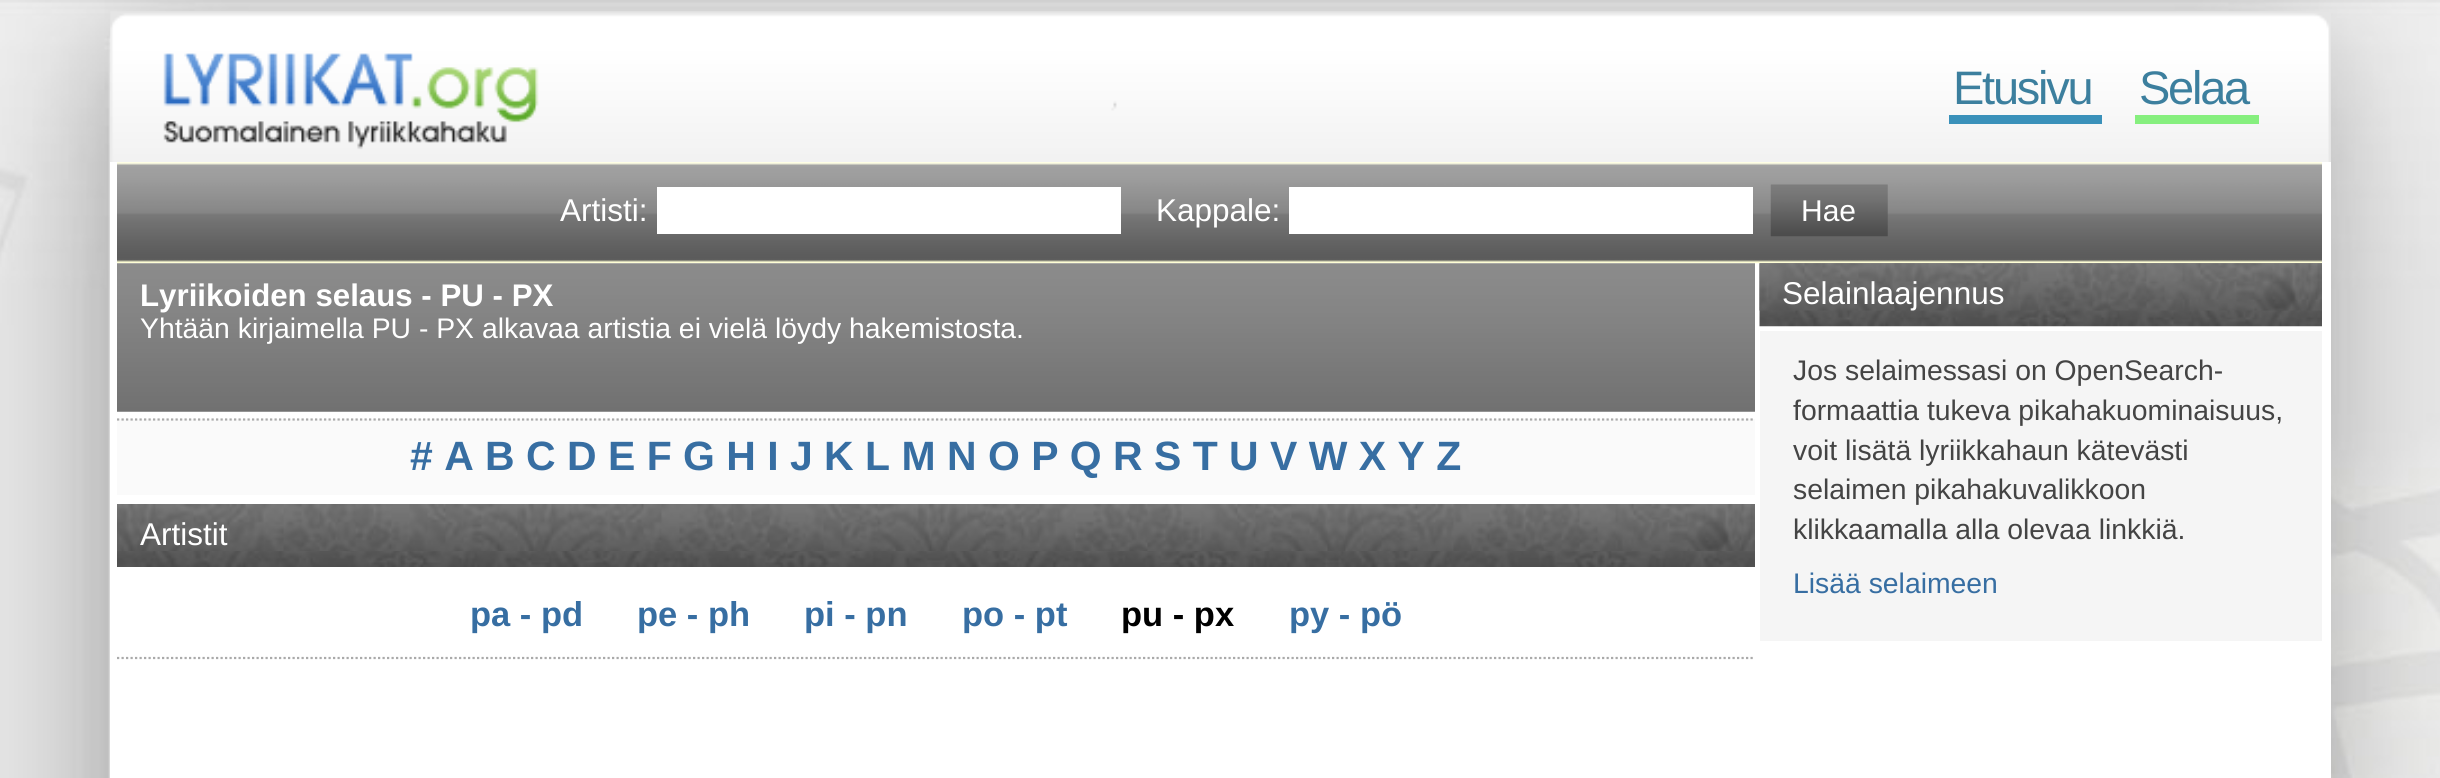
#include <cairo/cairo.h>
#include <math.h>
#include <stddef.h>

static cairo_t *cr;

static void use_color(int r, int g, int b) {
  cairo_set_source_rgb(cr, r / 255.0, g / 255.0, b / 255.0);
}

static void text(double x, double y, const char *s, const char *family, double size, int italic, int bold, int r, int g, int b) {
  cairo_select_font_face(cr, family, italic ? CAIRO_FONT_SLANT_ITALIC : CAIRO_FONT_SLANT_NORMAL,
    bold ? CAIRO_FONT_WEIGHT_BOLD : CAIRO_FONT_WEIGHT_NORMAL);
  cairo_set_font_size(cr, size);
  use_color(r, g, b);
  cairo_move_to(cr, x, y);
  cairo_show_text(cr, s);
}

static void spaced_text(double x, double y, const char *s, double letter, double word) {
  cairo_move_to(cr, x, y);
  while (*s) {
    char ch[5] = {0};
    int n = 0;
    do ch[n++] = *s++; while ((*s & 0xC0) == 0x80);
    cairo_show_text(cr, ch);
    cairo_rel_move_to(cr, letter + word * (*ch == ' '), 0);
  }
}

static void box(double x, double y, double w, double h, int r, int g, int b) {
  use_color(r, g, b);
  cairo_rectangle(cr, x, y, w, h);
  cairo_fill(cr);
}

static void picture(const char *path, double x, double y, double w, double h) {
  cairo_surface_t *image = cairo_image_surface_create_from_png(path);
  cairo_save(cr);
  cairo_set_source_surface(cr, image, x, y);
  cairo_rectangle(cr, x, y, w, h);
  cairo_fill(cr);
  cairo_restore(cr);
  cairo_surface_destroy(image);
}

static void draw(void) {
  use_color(255, 255, 255);
  cairo_paint(cr);
  picture("img_01.png", 0, 0, 2440, 778);
  picture("img_02.png", 110, 11, 2221, 151);
  box(1949, 115, 153, 9, 58, 145, 186);
  box(2135, 115, 124, 9, 134, 239, 126);
  box(110, 162, 2221, 616, 255, 255, 255);
  picture("img_03.png", 117, 162, 2205, 102);
  box(657, 187, 464, 47, 255, 255, 255);
  box(1289, 187, 464, 47, 255, 255, 255);
  picture("img_04.png", 1770, 184, 118, 53);
  picture("img_05.png", 117, 263, 1638, 149);
  box(117, 419, 1638, 76, 250, 250, 250);
  cairo_new_path(cr);
  cairo_move_to(cr, 117, 419.5);
  cairo_line_to(cr, 1755, 419.5);
  use_color(170, 170, 170);
  cairo_set_line_width(cr, 2.2);
  cairo_set_dash(cr, (double[]){2.25, 2.25}, 2, 0);
  cairo_stroke(cr);
  picture("img_06.png", 117, 551, 1638, 16);
  picture("img_07.png", 117, 504, 1638, 47);
  cairo_new_path(cr);
  cairo_move_to(cr, 117, 658);
  cairo_line_to(cr, 1755, 658);
  cairo_stroke(cr);
  picture("img_08.png", 1759, 263, 563, 64);
  picture("img_09.png", 1759, 263, 563, 48);
  box(1760, 331, 562, 310, 245, 245, 245);
  cairo_select_font_face(cr, "Liberation Sans", CAIRO_FONT_SLANT_NORMAL, CAIRO_FONT_WEIGHT_NORMAL);
  cairo_set_font_size(cr, 47);
  use_color(60, 127, 158);
  spaced_text(1953, 104, "Etusivu", -2.25, 0);
  spaced_text(2139, 104, "Selaa", -2.25, 0);
  text(560, 221, "Artisti:", "Liberation Sans", 31.5, 0, 0, 255, 255, 255);
  text(1156, 221, "Kappale:", "Liberation Sans", 31.5, 0, 0, 255, 255, 255);
  text(1801, 221, "Hae", "Liberation Sans", 30, 0, 0, 255, 255, 255);
  text(140, 306, "Lyriikoiden selaus - PU - PX", "Liberation Sans", 31.25, 0, 1, 255, 255, 255);
  text(140, 338, "Yhtään kirjaimella PU - PX alkavaa artistia ei vielä löydy hakemistosta.", "Liberation Sans", 28.35, 0, 0, 255, 255, 255);
  text(410, 470, "# A B C D E F G H I J K L M N O P Q R S T U V W X Y Z", "Liberation Sans", 40.95, 0, 1, 55, 110, 162);
  text(140, 545, "Artistit", "Liberation Sans", 31.5, 0, 0, 255, 255, 255);
  text(470, 626, "pa - pd", "Liberation Sans", 34.5, 0, 1, 55, 110, 162);
  text(637, 626, "pe - ph", "Liberation Sans", 34.5, 0, 1, 55, 110, 162);
  text(804, 626, "pi - pn", "Liberation Sans", 34.5, 0, 1, 55, 110, 162);
  text(962, 626, "po - pt", "Liberation Sans", 34.5, 0, 1, 55, 110, 162);
  text(1121, 626, "pu - px", "Liberation Sans", 34.5, 0, 1, 0, 0, 0);
  text(1289, 626, "py - pö", "Liberation Sans", 34.5, 0, 1, 55, 110, 162);
  text(1782, 304, "Selainlaajennus", "Liberation Sans", 31.5, 0, 0, 255, 255, 255);
  text(1793, 380, "Jos selaimessasi on OpenSearch-", "Liberation Sans", 28.35, 0, 0, 68, 68, 68);
  text(1793, 420, "formaattia tukeva pikahakuominaisuus,", "Liberation Sans", 28.35, 0, 0, 68, 68, 68);
  text(1793, 460, "voit lisätä lyriikkahaun kätevästi", "Liberation Sans", 28.35, 0, 0, 68, 68, 68);
  text(1793, 499, "selaimen pikahakuvalikkoon", "Liberation Sans", 28.35, 0, 0, 68, 68, 68);
  text(1793, 539, "klikkaamalla alla olevaa linkkiä.", "Liberation Sans", 28.35, 0, 0, 68, 68, 68);
  text(1793, 593, "Lisää selaimeen", "Liberation Sans", 28.35, 0, 0, 55, 110, 162);
}

int main(void) {
  cairo_surface_t *surface = cairo_image_surface_create(CAIRO_FORMAT_RGB24, 2440, 778);
  cr = cairo_create(surface);
  cairo_font_options_t *options = cairo_font_options_create();
  cairo_font_options_set_hint_metrics(options, CAIRO_HINT_METRICS_OFF);
  cairo_font_options_set_hint_style(options, CAIRO_HINT_STYLE_NONE);
  cairo_set_font_options(cr, options);
  cairo_set_miter_limit(cr, 4);
  draw();
  cairo_surface_write_to_png(surface, "out.png");
  cairo_font_options_destroy(options);
  cairo_destroy(cr);
  cairo_surface_destroy(surface);
  return 0;
}
